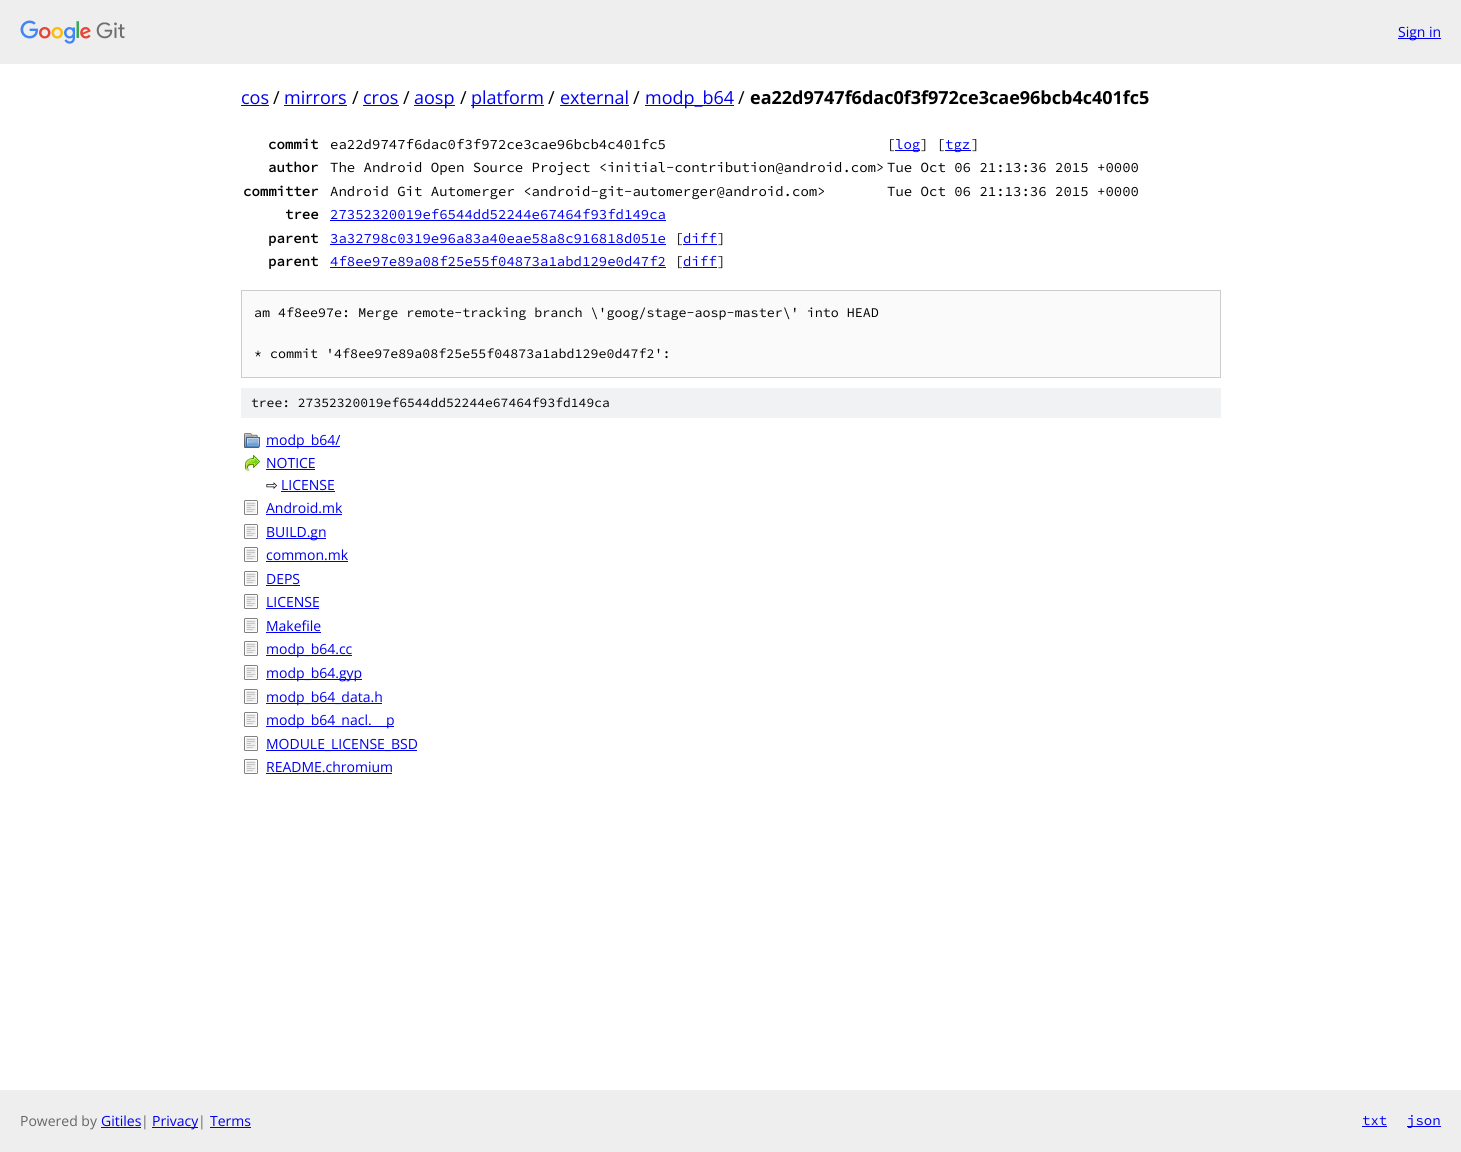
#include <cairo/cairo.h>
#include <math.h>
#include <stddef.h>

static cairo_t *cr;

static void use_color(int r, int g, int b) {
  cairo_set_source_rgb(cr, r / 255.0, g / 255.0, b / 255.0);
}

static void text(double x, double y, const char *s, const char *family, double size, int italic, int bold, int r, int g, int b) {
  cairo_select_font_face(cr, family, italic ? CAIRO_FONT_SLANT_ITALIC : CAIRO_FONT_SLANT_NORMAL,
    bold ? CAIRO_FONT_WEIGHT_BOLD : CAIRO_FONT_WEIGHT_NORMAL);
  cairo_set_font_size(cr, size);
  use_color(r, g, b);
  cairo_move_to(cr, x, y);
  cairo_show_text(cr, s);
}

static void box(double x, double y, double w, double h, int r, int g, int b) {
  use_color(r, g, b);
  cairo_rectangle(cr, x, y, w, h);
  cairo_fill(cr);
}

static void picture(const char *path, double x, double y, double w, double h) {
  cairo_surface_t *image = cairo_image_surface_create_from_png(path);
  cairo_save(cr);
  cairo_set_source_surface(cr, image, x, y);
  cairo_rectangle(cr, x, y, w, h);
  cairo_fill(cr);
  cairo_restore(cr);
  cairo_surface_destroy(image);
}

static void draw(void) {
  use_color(255, 255, 255);
  cairo_paint(cr);
  box(0, 0, 1461, 64, 238, 238, 238);
  picture("img_01.png", 20, 20, 105, 24);
  box(1398, 38, 43, 1, 0, 0, 238);
  box(241, 105, 28, 1, 0, 0, 238);
  box(284, 105, 63, 1, 0, 0, 238);
  box(363, 105, 36, 1, 0, 0, 238);
  box(414, 105, 41, 1, 0, 0, 238);
  box(471, 105, 73, 1, 0, 0, 238);
  box(560, 105, 69, 1, 0, 0, 238);
  box(645, 105, 89, 1, 0, 0, 238);
  box(895, 150, 25, 1, 0, 0, 238);
  box(945, 150, 26, 1, 0, 0, 238);
  box(330, 220, 336, 1, 0, 0, 238);
  box(330, 244, 336, 1, 0, 0, 238);
  box(683, 244, 34, 1, 0, 0, 238);
  box(330, 267, 336, 1, 0, 0, 238);
  box(683, 267, 34, 1, 0, 0, 238);
  use_color(250, 250, 250);
  cairo_rectangle(cr, 241.5, 290.5, 979, 87);
  cairo_fill_preserve(cr);
  use_color(204, 204, 204);
  cairo_set_line_width(cr, 1);
  cairo_stroke(cr);
  box(241, 388, 980, 30, 241, 242, 243);
  picture("img_02.png", 244, 433, 16, 15);
  box(266, 446, 74, 1, 0, 0, 238);
  picture("img_03.png", 245, 455, 15, 16);
  box(266, 469, 49, 1, 0, 0, 238);
  box(281, 491, 54, 1, 0, 0, 238);
  picture("img_04.png", 244, 500, 14, 15);
  box(266, 514, 76, 1, 0, 0, 238);
  picture("img_04.png", 244, 524, 14, 15);
  box(266, 538, 60, 1, 0, 0, 238);
  picture("img_04.png", 244, 547, 14, 15);
  box(266, 561, 82, 1, 0, 0, 238);
  picture("img_04.png", 244, 571, 14, 15);
  box(266, 585, 34, 1, 0, 0, 238);
  picture("img_04.png", 244, 594, 14, 15);
  box(266, 608, 53, 1, 0, 0, 238);
  picture("img_04.png", 244, 618, 14, 15);
  box(266, 632, 55, 1, 0, 0, 238);
  picture("img_04.png", 244, 641, 14, 15);
  box(266, 655, 86, 1, 0, 0, 238);
  picture("img_04.png", 244, 665, 14, 15);
  box(266, 679, 96, 1, 0, 0, 238);
  picture("img_04.png", 244, 689, 14, 15);
  box(266, 703, 116, 1, 0, 0, 238);
  picture("img_04.png", 244, 712, 14, 15);
  box(266, 726, 128, 1, 0, 0, 238);
  picture("img_04.png", 244, 736, 14, 15);
  box(266, 750, 151, 1, 0, 0, 238);
  picture("img_04.png", 244, 759, 14, 15);
  box(266, 773, 126, 1, 0, 0, 238);
  box(0, 1090, 1461, 62, 238, 238, 238);
  box(101, 1127, 40, 1, 0, 0, 238);
  box(152, 1127, 46, 1, 0, 0, 238);
  box(210, 1127, 41, 1, 0, 0, 238);
  box(1362, 1126, 25, 1, 0, 0, 238);
  box(1407, 1126, 34, 1, 0, 0, 238);
  text(1398, 37, "Sign in", "Open Sans", 14, 0, 0, 0, 0, 238);
  text(241, 104, "cos", "Open Sans", 18, 0, 0, 0, 0, 238);
  text(273, 104, "/", "Open Sans", 18, 0, 0, 0, 0, 0);
  text(284, 104, "mirrors", "Open Sans", 18, 0, 0, 0, 0, 238);
  text(352, 104, "/", "Open Sans", 18, 0, 0, 0, 0, 0);
  text(363, 104, "cros", "Open Sans", 18, 0, 0, 0, 0, 238);
  text(403, 104, "/", "Open Sans", 18, 0, 0, 0, 0, 0);
  text(414, 104, "aosp", "Open Sans", 18, 0, 0, 0, 0, 238);
  text(460, 104, "/", "Open Sans", 18, 0, 0, 0, 0, 0);
  text(471, 104, "platform", "Open Sans", 18, 0, 0, 0, 0, 238);
  text(548, 104, "/", "Open Sans", 18, 0, 0, 0, 0, 0);
  text(560, 104, "external", "Open Sans", 18, 0, 0, 0, 0, 238);
  text(633, 104, "/", "Open Sans", 18, 0, 0, 0, 0, 0);
  text(645, 104, "modp_b64", "Open Sans", 18, 0, 0, 0, 0, 238);
  text(738, 104, "/", "Open Sans", 18, 0, 0, 0, 0, 0);
  text(750, 104, "ea22d9747f6dac0f3f972ce3cae96bcb4c401fc5", "Open Sans", 18, 0, 1, 0, 0, 0);
  text(268, 149, "commit", "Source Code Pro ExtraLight", 14, 0, 1, 0, 0, 0);
  text(330, 149, "ea22d9747f6dac0f3f972ce3cae96bcb4c401fc5", "Source Code Pro ExtraLight ExtraLight", 14, 0, 0, 0, 0, 0);
  text(887, 149, "[", "Source Code Pro ExtraLight ExtraLight", 14, 0, 0, 0, 0, 0);
  text(895, 149, "log", "Source Code Pro ExtraLight ExtraLight", 14, 0, 0, 0, 0, 238);
  text(920, 149, "] [", "Source Code Pro ExtraLight ExtraLight", 14, 0, 0, 0, 0, 0);
  text(945, 149, "tgz", "Source Code Pro ExtraLight ExtraLight", 14, 0, 0, 0, 0, 238);
  text(971, 149, "]", "Source Code Pro ExtraLight ExtraLight", 14, 0, 0, 0, 0, 0);
  text(268, 172, "author", "Source Code Pro ExtraLight", 14, 0, 1, 0, 0, 0);
  text(330, 172, "The Android Open Source Project <initial-contribution@android.com>", "Source Code Pro ExtraLight ExtraLight", 14, 0, 0, 0, 0, 0);
  text(887, 172, "Tue Oct 06 21:13:36 2015 +0000", "Source Code Pro ExtraLight ExtraLight", 14, 0, 0, 0, 0, 0);
  text(243, 196, "committer", "Source Code Pro ExtraLight", 14, 0, 1, 0, 0, 0);
  text(330, 196, "Android Git Automerger <android-git-automerger@android.com>", "Source Code Pro ExtraLight ExtraLight", 14, 0, 0, 0, 0, 0);
  text(887, 196, "Tue Oct 06 21:13:36 2015 +0000", "Source Code Pro ExtraLight ExtraLight", 14, 0, 0, 0, 0, 0);
  text(285, 219, "tree", "Source Code Pro ExtraLight", 14, 0, 1, 0, 0, 0);
  text(330, 219, "27352320019ef6544dd52244e67464f93fd149ca", "Source Code Pro ExtraLight ExtraLight", 14, 0, 0, 0, 0, 238);
  text(268, 243, "parent", "Source Code Pro ExtraLight", 14, 0, 1, 0, 0, 0);
  text(330, 243, "3a32798c0319e96a83a40eae58a8c916818d051e", "Source Code Pro ExtraLight ExtraLight", 14, 0, 0, 0, 0, 238);
  text(675, 243, "[", "Source Code Pro ExtraLight ExtraLight", 14, 0, 0, 0, 0, 0);
  text(683, 243, "diff", "Source Code Pro ExtraLight ExtraLight", 14, 0, 0, 0, 0, 238);
  text(717, 243, "]", "Source Code Pro ExtraLight ExtraLight", 14, 0, 0, 0, 0, 0);
  text(268, 266, "parent", "Source Code Pro ExtraLight", 14, 0, 1, 0, 0, 0);
  text(330, 266, "4f8ee97e89a08f25e55f04873a1abd129e0d47f2", "Source Code Pro ExtraLight ExtraLight", 14, 0, 0, 0, 0, 238);
  text(675, 266, "[", "Source Code Pro ExtraLight ExtraLight", 14, 0, 0, 0, 0, 0);
  text(683, 266, "diff", "Source Code Pro ExtraLight ExtraLight", 14, 0, 0, 0, 0, 238);
  text(717, 266, "]", "Source Code Pro ExtraLight ExtraLight", 14, 0, 0, 0, 0, 0);
  text(254, 317, "am 4f8ee97e: Merge remote-tracking branch \\'goog/stage-aosp-master\\' into HEAD", "Source Code Pro ExtraLight ExtraLight", 13.35, 0, 0, 0, 0, 0);
  text(254, 358, "* commit '4f8ee97e89a08f25e55f04873a1abd129e0d47f2':", "Source Code Pro ExtraLight ExtraLight", 13.35, 0, 0, 0, 0, 0);
  text(251, 407, "tree: 27352320019ef6544dd52244e67464f93fd149ca", "Source Code Pro ExtraLight ExtraLight", 13, 0, 0, 0, 0, 0);
  text(266, 445, "modp_b64/", "Open Sans", 14, 0, 0, 0, 0, 238);
  text(266, 468, "NOTICE", "Open Sans", 14, 0, 0, 0, 0, 238);
  text(266, 490, "⇨", "DejaVu Sans", 14, 0, 0, 0, 0, 0);
  text(281, 490, "LICENSE", "Open Sans", 14, 0, 0, 0, 0, 238);
  text(266, 513, "Android.mk", "Open Sans", 14, 0, 0, 0, 0, 238);
  text(266, 537, "BUILD.gn", "Open Sans", 14, 0, 0, 0, 0, 238);
  text(266, 560, "common.mk", "Open Sans", 14, 0, 0, 0, 0, 238);
  text(266, 584, "DEPS", "Open Sans", 14, 0, 0, 0, 0, 238);
  text(266, 607, "LICENSE", "Open Sans", 14, 0, 0, 0, 0, 238);
  text(266, 631, "Makefile", "Open Sans", 14, 0, 0, 0, 0, 238);
  text(266, 654, "modp_b64.cc", "Open Sans", 14, 0, 0, 0, 0, 238);
  text(266, 678, "modp_b64.gyp", "Open Sans", 14, 0, 0, 0, 0, 238);
  text(266, 702, "modp_b64_data.h", "Open Sans", 14, 0, 0, 0, 0, 238);
  text(266, 725, "modp_b64_nacl.", "Open Sans", 14, 0, 0, 0, 0, 238);
  text(386, 725, "p", "Open Sans", 14, 0, 0, 0, 0, 238);
  text(266, 749, "MODULE_LICENSE_BSD", "Open Sans", 14, 0, 0, 0, 0, 238);
  text(266, 772, "README.chromium", "Open Sans", 14, 0, 0, 0, 0, 238);
  text(20, 1126, "Powered by", "Open Sans", 14, 0, 0, 102, 102, 102);
  text(101, 1126, "Gitiles", "Open Sans", 14, 0, 0, 0, 0, 238);
  text(141, 1126, "|", "Open Sans", 14, 0, 0, 102, 102, 102);
  text(152, 1126, "Privacy", "Open Sans", 14, 0, 0, 0, 0, 238);
  text(198, 1126, "|", "Open Sans", 14, 0, 0, 102, 102, 102);
  text(210, 1126, "Terms", "Open Sans", 14, 0, 0, 0, 0, 238);
  text(1362, 1125, "txt", "Source Code Pro ExtraLight ExtraLight", 14, 0, 0, 0, 0, 238);
  text(1407, 1125, "json", "Source Code Pro ExtraLight ExtraLight", 14, 0, 0, 0, 0, 238);
}

int main(void) {
  cairo_surface_t *surface = cairo_image_surface_create(CAIRO_FORMAT_RGB24, 1461, 1152);
  cr = cairo_create(surface);
  cairo_font_options_t *options = cairo_font_options_create();
  cairo_font_options_set_hint_metrics(options, CAIRO_HINT_METRICS_OFF);
  cairo_font_options_set_hint_style(options, CAIRO_HINT_STYLE_NONE);
  cairo_set_font_options(cr, options);
  cairo_set_miter_limit(cr, 4);
  draw();
  cairo_surface_write_to_png(surface, "out.png");
  cairo_font_options_destroy(options);
  cairo_destroy(cr);
  cairo_surface_destroy(surface);
  return 0;
}
